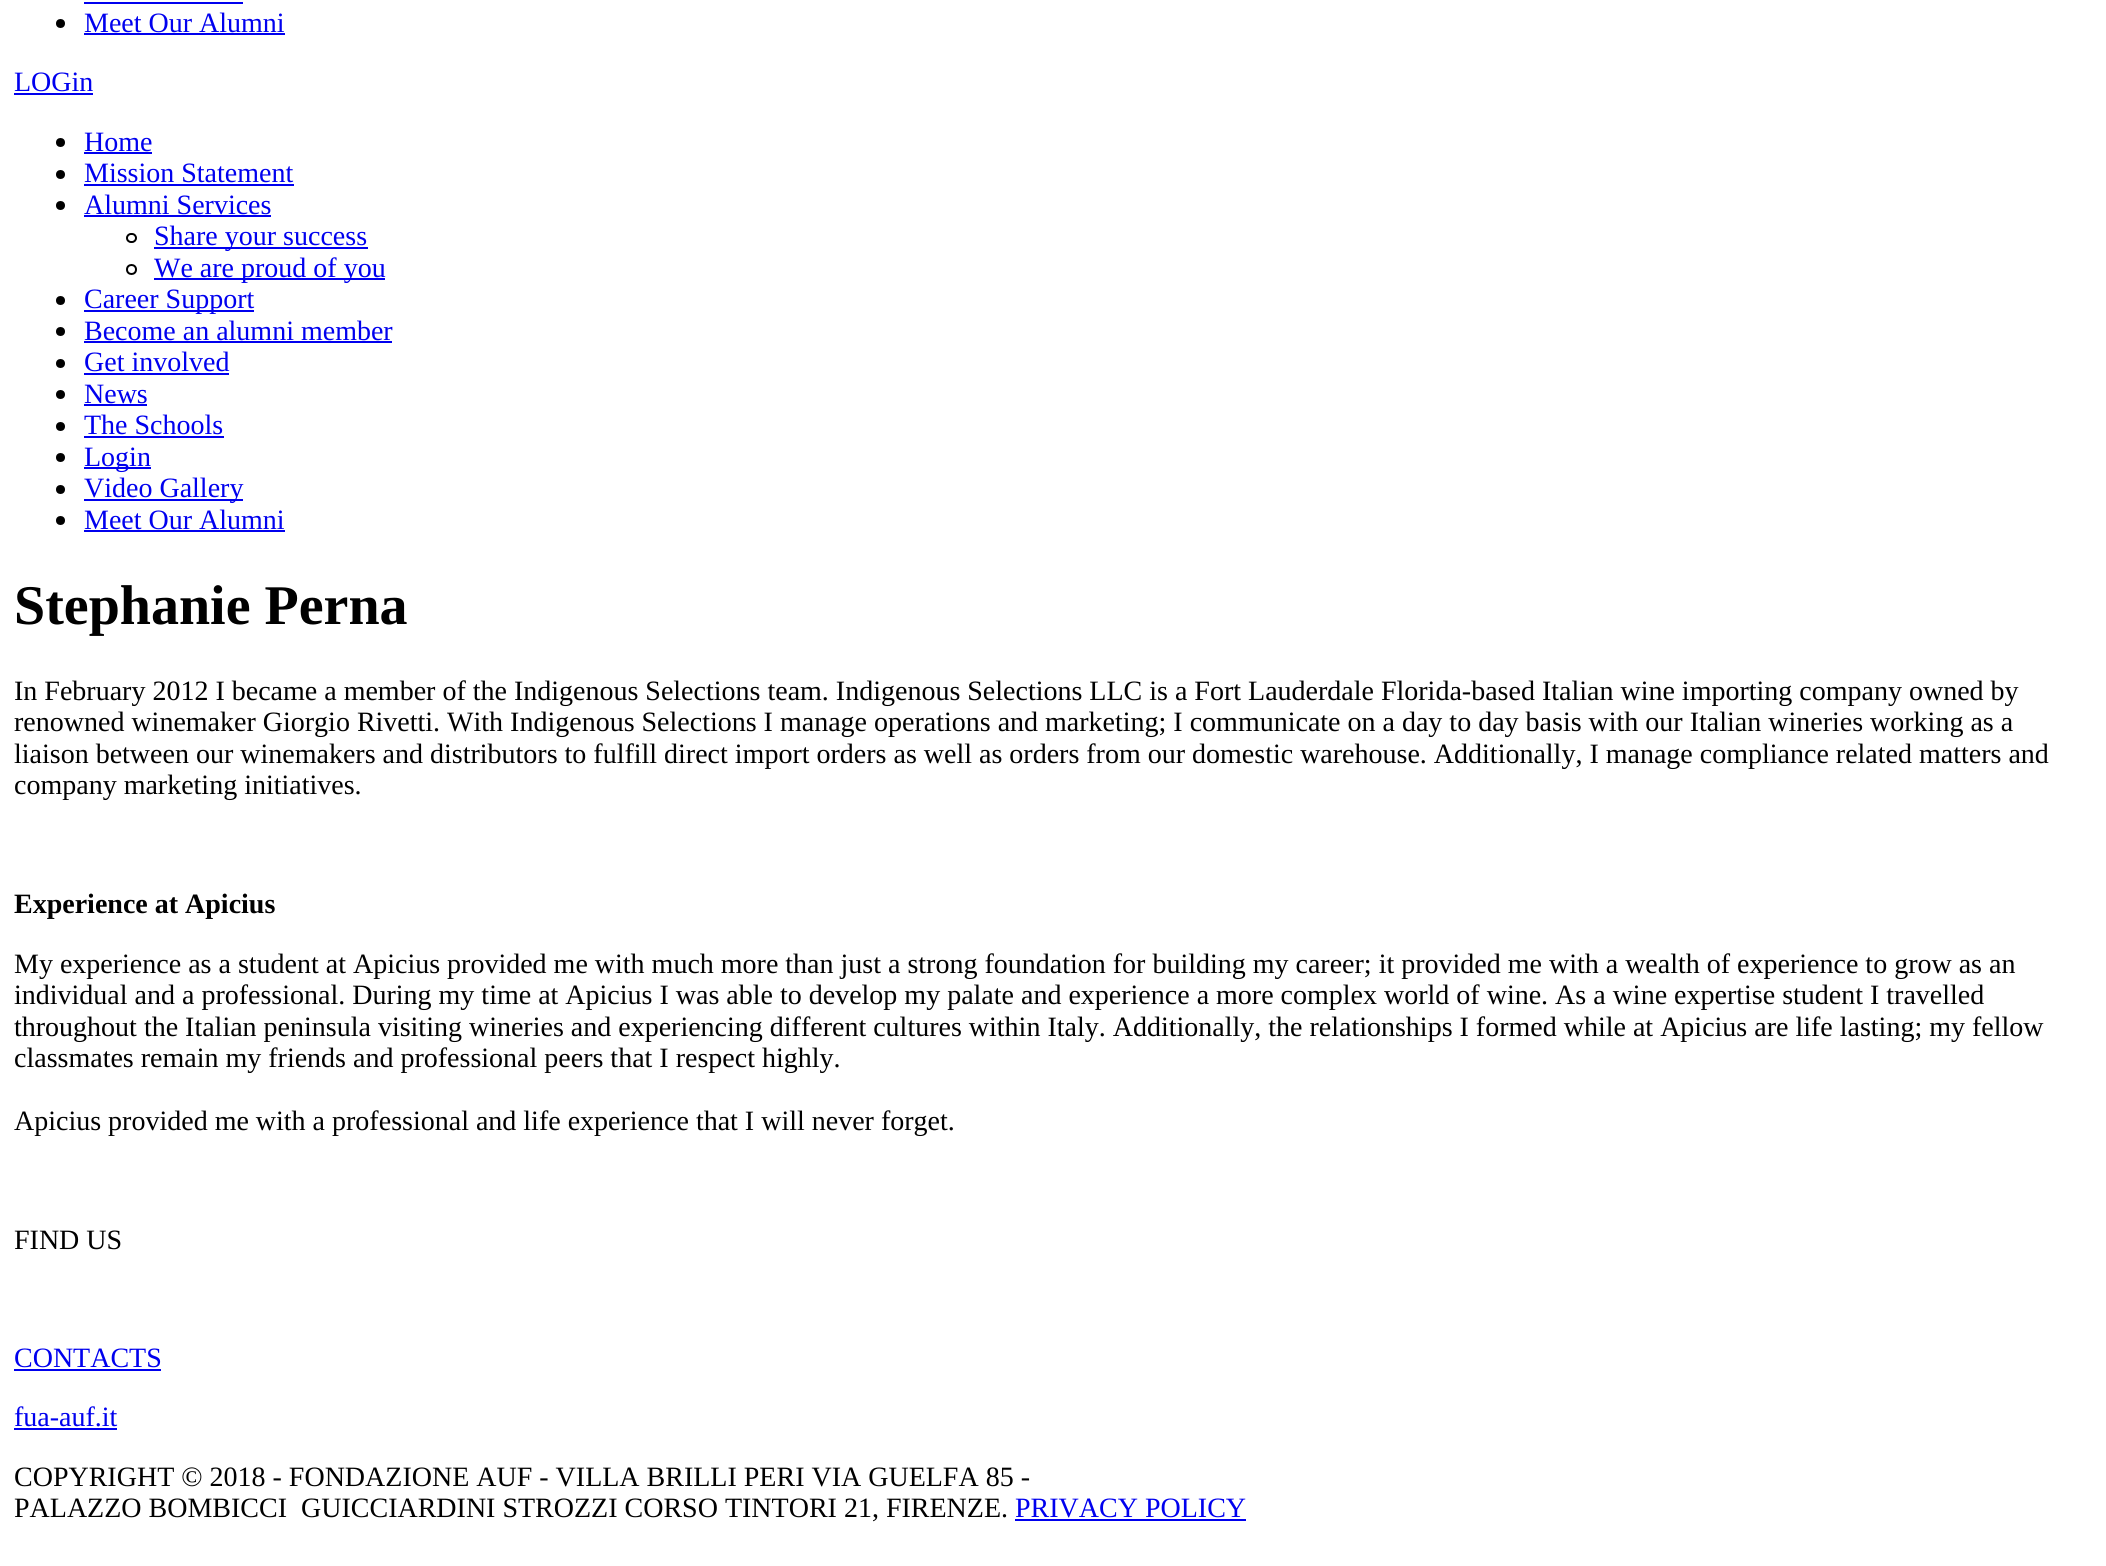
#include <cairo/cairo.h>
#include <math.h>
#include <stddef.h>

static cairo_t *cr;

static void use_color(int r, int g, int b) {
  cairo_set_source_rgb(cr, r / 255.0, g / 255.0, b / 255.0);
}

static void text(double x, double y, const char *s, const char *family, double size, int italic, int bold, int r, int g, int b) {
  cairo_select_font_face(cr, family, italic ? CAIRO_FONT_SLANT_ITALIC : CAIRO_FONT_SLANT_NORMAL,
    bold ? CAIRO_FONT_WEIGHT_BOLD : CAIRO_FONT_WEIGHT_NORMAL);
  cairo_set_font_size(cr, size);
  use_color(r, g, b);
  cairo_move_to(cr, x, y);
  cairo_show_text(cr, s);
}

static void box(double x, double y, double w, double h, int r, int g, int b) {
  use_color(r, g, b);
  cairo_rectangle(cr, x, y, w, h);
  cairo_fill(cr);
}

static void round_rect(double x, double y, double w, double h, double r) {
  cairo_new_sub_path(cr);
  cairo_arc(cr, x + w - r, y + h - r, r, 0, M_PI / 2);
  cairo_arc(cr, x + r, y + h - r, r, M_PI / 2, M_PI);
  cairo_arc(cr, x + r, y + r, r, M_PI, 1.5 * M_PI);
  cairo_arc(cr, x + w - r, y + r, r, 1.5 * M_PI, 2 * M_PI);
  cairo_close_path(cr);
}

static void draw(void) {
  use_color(255, 255, 255);
  cairo_paint(cr);
  box(84, 2, 159, 2, 0, 0, 238);
  use_color(0, 0, 0);
  cairo_arc(cr, 60.5, 23.5, 4.5, 0, 2 * M_PI);
  cairo_fill(cr);
  box(84, 33, 201, 2, 0, 0, 238);
  box(14, 93, 79, 2, 0, 0, 238);
  use_color(0, 0, 0);
  cairo_arc(cr, 60.5, 142.5, 4.5, 0, 2 * M_PI);
  cairo_fill(cr);
  box(84, 152, 68, 2, 0, 0, 238);
  use_color(0, 0, 0);
  cairo_arc(cr, 60.5, 174.5, 4.5, 0, 2 * M_PI);
  cairo_fill(cr);
  box(84, 184, 210, 2, 0, 0, 238);
  use_color(0, 0, 0);
  cairo_arc(cr, 60.5, 205.5, 4.5, 0, 2 * M_PI);
  cairo_fill(cr);
  box(84, 215, 187, 2, 0, 0, 238);
  round_rect(127, 234, 9, 8, 4);
  use_color(0, 0, 0);
  cairo_stroke(cr);
  box(154, 247, 214, 2, 0, 0, 238);
  cairo_arc(cr, 131.5, 269.5, 4.5, 0, 2 * M_PI);
  use_color(0, 0, 0);
  cairo_stroke(cr);
  box(154, 278, 231, 2, 0, 0, 238);
  use_color(0, 0, 0);
  cairo_arc(cr, 60.5, 300.5, 4.5, 0, 2 * M_PI);
  cairo_fill(cr);
  box(84, 310, 170, 2, 0, 0, 238);
  use_color(0, 0, 0);
  cairo_arc(cr, 60.5, 331.5, 4.5, 0, 2 * M_PI);
  cairo_fill(cr);
  box(84, 341, 308, 2, 0, 0, 238);
  use_color(0, 0, 0);
  cairo_arc(cr, 60.5, 363.5, 4.5, 0, 2 * M_PI);
  cairo_fill(cr);
  box(84, 373, 145, 2, 0, 0, 238);
  use_color(0, 0, 0);
  cairo_arc(cr, 60.5, 394.5, 4.5, 0, 2 * M_PI);
  cairo_fill(cr);
  box(84, 404, 63, 2, 0, 0, 238);
  use_color(0, 0, 0);
  cairo_arc(cr, 60.5, 426.5, 4.5, 0, 2 * M_PI);
  cairo_fill(cr);
  box(84, 436, 140, 2, 0, 0, 238);
  use_color(0, 0, 0);
  cairo_arc(cr, 60.5, 457.5, 4.5, 0, 2 * M_PI);
  cairo_fill(cr);
  box(84, 467, 67, 2, 0, 0, 238);
  use_color(0, 0, 0);
  cairo_arc(cr, 60.5, 489.5, 4.5, 0, 2 * M_PI);
  cairo_fill(cr);
  box(84, 499, 159, 2, 0, 0, 238);
  use_color(0, 0, 0);
  cairo_arc(cr, 60.5, 520.5, 4.5, 0, 2 * M_PI);
  cairo_fill(cr);
  box(84, 530, 201, 2, 0, 0, 238);
  box(14, 1369, 147, 2, 0, 0, 238);
  box(14, 1428, 103, 2, 0, 0, 238);
  box(1015, 1519, 231, 2, 0, 0, 238);
  text(84, 32, "Meet Our Alumni", "Liberation Serif", 28, 0, 0, 0, 0, 238);
  text(14, 91, "LOGin", "Liberation Serif", 28, 0, 0, 0, 0, 238);
  text(84, 151, "Home", "Liberation Serif", 28, 0, 0, 0, 0, 238);
  text(84, 182, "Mission Statement", "Liberation Serif", 28, 0, 0, 0, 0, 238);
  text(84, 214, "Alumni Services", "Liberation Serif", 28, 0, 0, 0, 0, 238);
  text(154, 245, "Share your success", "Liberation Serif", 28, 0, 0, 0, 0, 238);
  text(154, 277, "We are proud of you", "Liberation Serif", 28, 0, 0, 0, 0, 238);
  text(84, 308, "Career Support", "Liberation Serif", 28, 0, 0, 0, 0, 238);
  text(84, 340, "Become an alumni member", "Liberation Serif", 28, 0, 0, 0, 0, 238);
  text(84, 371, "Get involved", "Liberation Serif", 28, 0, 0, 0, 0, 238);
  text(84, 403, "News", "Liberation Serif", 28, 0, 0, 0, 0, 238);
  text(84, 434, "The Schools", "Liberation Serif", 28, 0, 0, 0, 0, 238);
  text(84, 466, "Login", "Liberation Serif", 28, 0, 0, 0, 0, 238);
  text(84, 497, "Video Gallery", "Liberation Serif", 28, 0, 0, 0, 0, 238);
  text(84, 529, "Meet Our Alumni", "Liberation Serif", 28, 0, 0, 0, 0, 238);
  text(14, 624, "Stephanie Perna", "Liberation Serif", 56, 0, 1, 0, 0, 0);
  text(14, 700, "In February 2012 I became a member of the Indigenous Selections team. Indigenous Selections LLC is a Fort Lauderdale Florida-based Italian wine importing company owned by", "Liberation Serif", 28, 0, 0, 0, 0, 0);
  text(14, 731, "renowned winemaker Giorgio Rivetti. With Indigenous Selections I manage operations and marketing; I communicate on a day to day basis with our Italian wineries working as a", "Liberation Serif", 28, 0, 0, 0, 0, 0);
  text(14, 763, "liaison between our winemakers and distributors to fulfill direct import orders as well as orders from our domestic warehouse. Additionally, I manage compliance related matters and", "Liberation Serif", 28, 0, 0, 0, 0, 0);
  text(14, 794, "company marketing initiatives.", "Liberation Serif", 28, 0, 0, 0, 0, 0);
  text(14, 913, "Experience at Apicius", "Liberation Serif", 28, 0, 1, 0, 0, 0);
  text(14, 973, "My experience as a student at Apicius provided me with much more than just a strong foundation for building my career; it provided me with a wealth of experience to grow as an", "Liberation Serif", 28, 0, 0, 0, 0, 0);
  text(14, 1004, "individual and a professional. During my time at Apicius I was able to develop my palate and experience a more complex world of wine. As a wine expertise student I travelled", "Liberation Serif", 28, 0, 0, 0, 0, 0);
  text(14, 1036, "throughout the Italian peninsula visiting wineries and experiencing different cultures within Italy. Additionally, the relationships I formed while at Apicius are life lasting; my fellow", "Liberation Serif", 28, 0, 0, 0, 0, 0);
  text(14, 1067, "classmates remain my friends and professional peers that I respect highly.", "Liberation Serif", 28, 0, 0, 0, 0, 0);
  text(14, 1130, "Apicius provided me with a professional and life experience that I will never forget.", "Liberation Serif", 28, 0, 0, 0, 0, 0);
  text(14, 1249, "FIND US", "Liberation Serif", 28, 0, 0, 0, 0, 0);
  text(14, 1367, "CONTACTS", "Liberation Serif", 28, 0, 0, 0, 0, 238);
  text(14, 1426, "fua-auf.it", "Liberation Serif", 28, 0, 0, 0, 0, 238);
  text(14, 1486, "COPYRIGHT © 2018 - FONDAZIONE AUF - VILLA BRILLI PERI VIA GUELFA 85 -", "Liberation Serif", 28, 0, 0, 0, 0, 0);
  text(14, 1517, "PALAZZO BOMBICCI  GUICCIARDINI STROZZI CORSO TINTORI 21, FIRENZE.", "Liberation Serif", 28, 0, 0, 0, 0, 0);
  text(1015, 1517, "PRIVACY POLICY", "Liberation Serif", 28, 0, 0, 0, 0, 238);
}

int main(void) {
  cairo_surface_t *surface = cairo_image_surface_create(CAIRO_FORMAT_RGB24, 2106, 1566);
  cr = cairo_create(surface);
  cairo_font_options_t *options = cairo_font_options_create();
  cairo_font_options_set_hint_metrics(options, CAIRO_HINT_METRICS_OFF);
  cairo_font_options_set_hint_style(options, CAIRO_HINT_STYLE_NONE);
  cairo_set_font_options(cr, options);
  cairo_set_miter_limit(cr, 4);
  draw();
  cairo_surface_write_to_png(surface, "out.png");
  cairo_font_options_destroy(options);
  cairo_destroy(cr);
  cairo_surface_destroy(surface);
  return 0;
}
